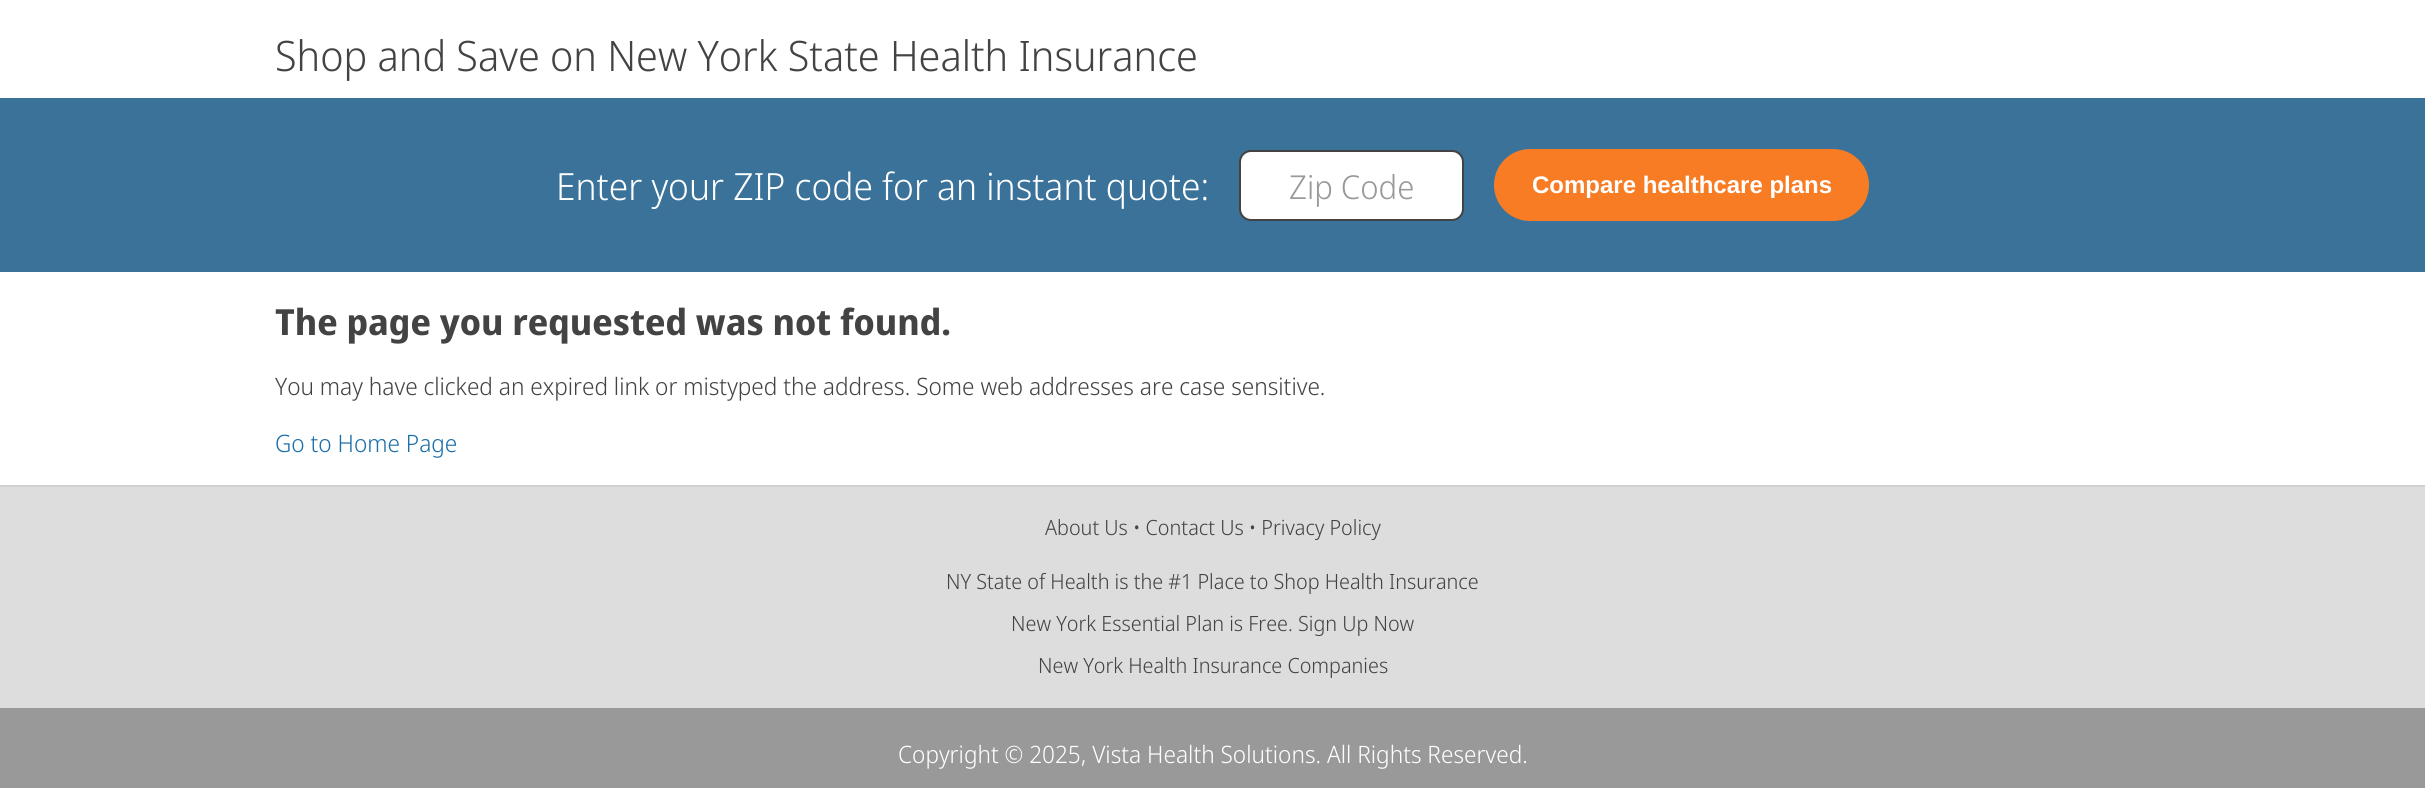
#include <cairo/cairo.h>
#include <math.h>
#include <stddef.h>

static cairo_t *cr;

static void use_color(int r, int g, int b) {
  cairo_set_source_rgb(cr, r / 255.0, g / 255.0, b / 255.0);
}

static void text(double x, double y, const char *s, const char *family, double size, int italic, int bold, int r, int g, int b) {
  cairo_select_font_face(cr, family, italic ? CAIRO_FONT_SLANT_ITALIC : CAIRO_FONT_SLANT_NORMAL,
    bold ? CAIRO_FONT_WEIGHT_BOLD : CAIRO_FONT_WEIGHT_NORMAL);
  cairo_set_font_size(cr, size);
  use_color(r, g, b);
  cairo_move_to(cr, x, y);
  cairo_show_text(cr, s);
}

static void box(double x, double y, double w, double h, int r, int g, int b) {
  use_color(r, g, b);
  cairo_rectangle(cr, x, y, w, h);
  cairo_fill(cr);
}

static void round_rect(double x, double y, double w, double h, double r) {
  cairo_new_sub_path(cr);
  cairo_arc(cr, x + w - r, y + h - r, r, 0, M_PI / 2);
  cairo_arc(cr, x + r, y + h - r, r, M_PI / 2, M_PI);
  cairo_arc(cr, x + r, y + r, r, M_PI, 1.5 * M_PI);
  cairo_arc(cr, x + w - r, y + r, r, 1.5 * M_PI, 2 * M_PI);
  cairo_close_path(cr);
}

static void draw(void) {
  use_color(255, 255, 255);
  cairo_paint(cr);
  box(0, 98, 2425, 36, 58, 114, 153);
  box(0, 134, 2425, 138, 58, 114, 153);
  use_color(255, 255, 255);
  round_rect(1240, 151, 223, 69, 11);
  cairo_fill_preserve(cr);
  use_color(67, 67, 67);
  cairo_stroke(cr);
  use_color(248, 124, 36);
  round_rect(1494, 149, 375, 72, 36);
  cairo_fill(cr);
  box(0, 487, 2425, 221, 221, 221, 221);
  box(0, 485, 2425, 2, 208, 208, 208);
  box(0, 708, 2425, 80, 153, 153, 153);
  text(275, 71, "Shop and Save on New York State Health Insurance", "Noto Sans Display Light", 42, 0, 0, 67, 67, 67);
  text(556, 200, "Enter your ZIP code for an instant quote:", "Noto Sans Display Light", 37.5, 0, 0, 255, 255, 255);
  text(1289, 199, "Zip Code", "Noto Sans Display Light", 33, 0, 0, 153, 153, 153);
  text(1532, 193, "Compare healthcare plans", "Liberation Sans", 24, 0, 1, 255, 255, 255);
  text(275, 335, "The page you requested was not found.", "Noto Sans Display", 36, 0, 1, 67, 67, 67);
  text(275, 395, "You may have clicked an expired link or mistyped the address. Some web addresses are case sensitive.", "Noto Sans Display Light", 24, 0, 0, 67, 67, 67);
  text(275, 452, "Go to Home Page", "Noto Sans Display Light", 24, 0, 0, 29, 110, 169);
  text(1045, 535, "About Us • Contact Us • Privacy Policy", "Noto Sans Display Light", 21, 0, 0, 67, 67, 67);
  text(946, 589, "NY State of Health is the #1 Place to Shop Health Insurance", "Noto Sans Display Light", 21, 0, 0, 67, 67, 67);
  text(1011, 631, "New York Essential Plan is Free. Sign Up Now", "Noto Sans Display Light", 21, 0, 0, 67, 67, 67);
  text(1038, 673, "New York Health Insurance Companies", "Noto Sans Display Light", 21, 0, 0, 67, 67, 67);
  text(898, 763, "Copyright © 2025, Vista Health Solutions. All Rights Reserved.", "Noto Sans Display Light", 24, 0, 0, 255, 255, 255);
}

int main(void) {
  cairo_surface_t *surface = cairo_image_surface_create(CAIRO_FORMAT_RGB24, 2425, 788);
  cr = cairo_create(surface);
  cairo_font_options_t *options = cairo_font_options_create();
  cairo_font_options_set_hint_metrics(options, CAIRO_HINT_METRICS_OFF);
  cairo_font_options_set_hint_style(options, CAIRO_HINT_STYLE_NONE);
  cairo_set_font_options(cr, options);
  cairo_set_miter_limit(cr, 4);
  draw();
  cairo_surface_write_to_png(surface, "out.png");
  cairo_font_options_destroy(options);
  cairo_destroy(cr);
  cairo_surface_destroy(surface);
  return 0;
}
